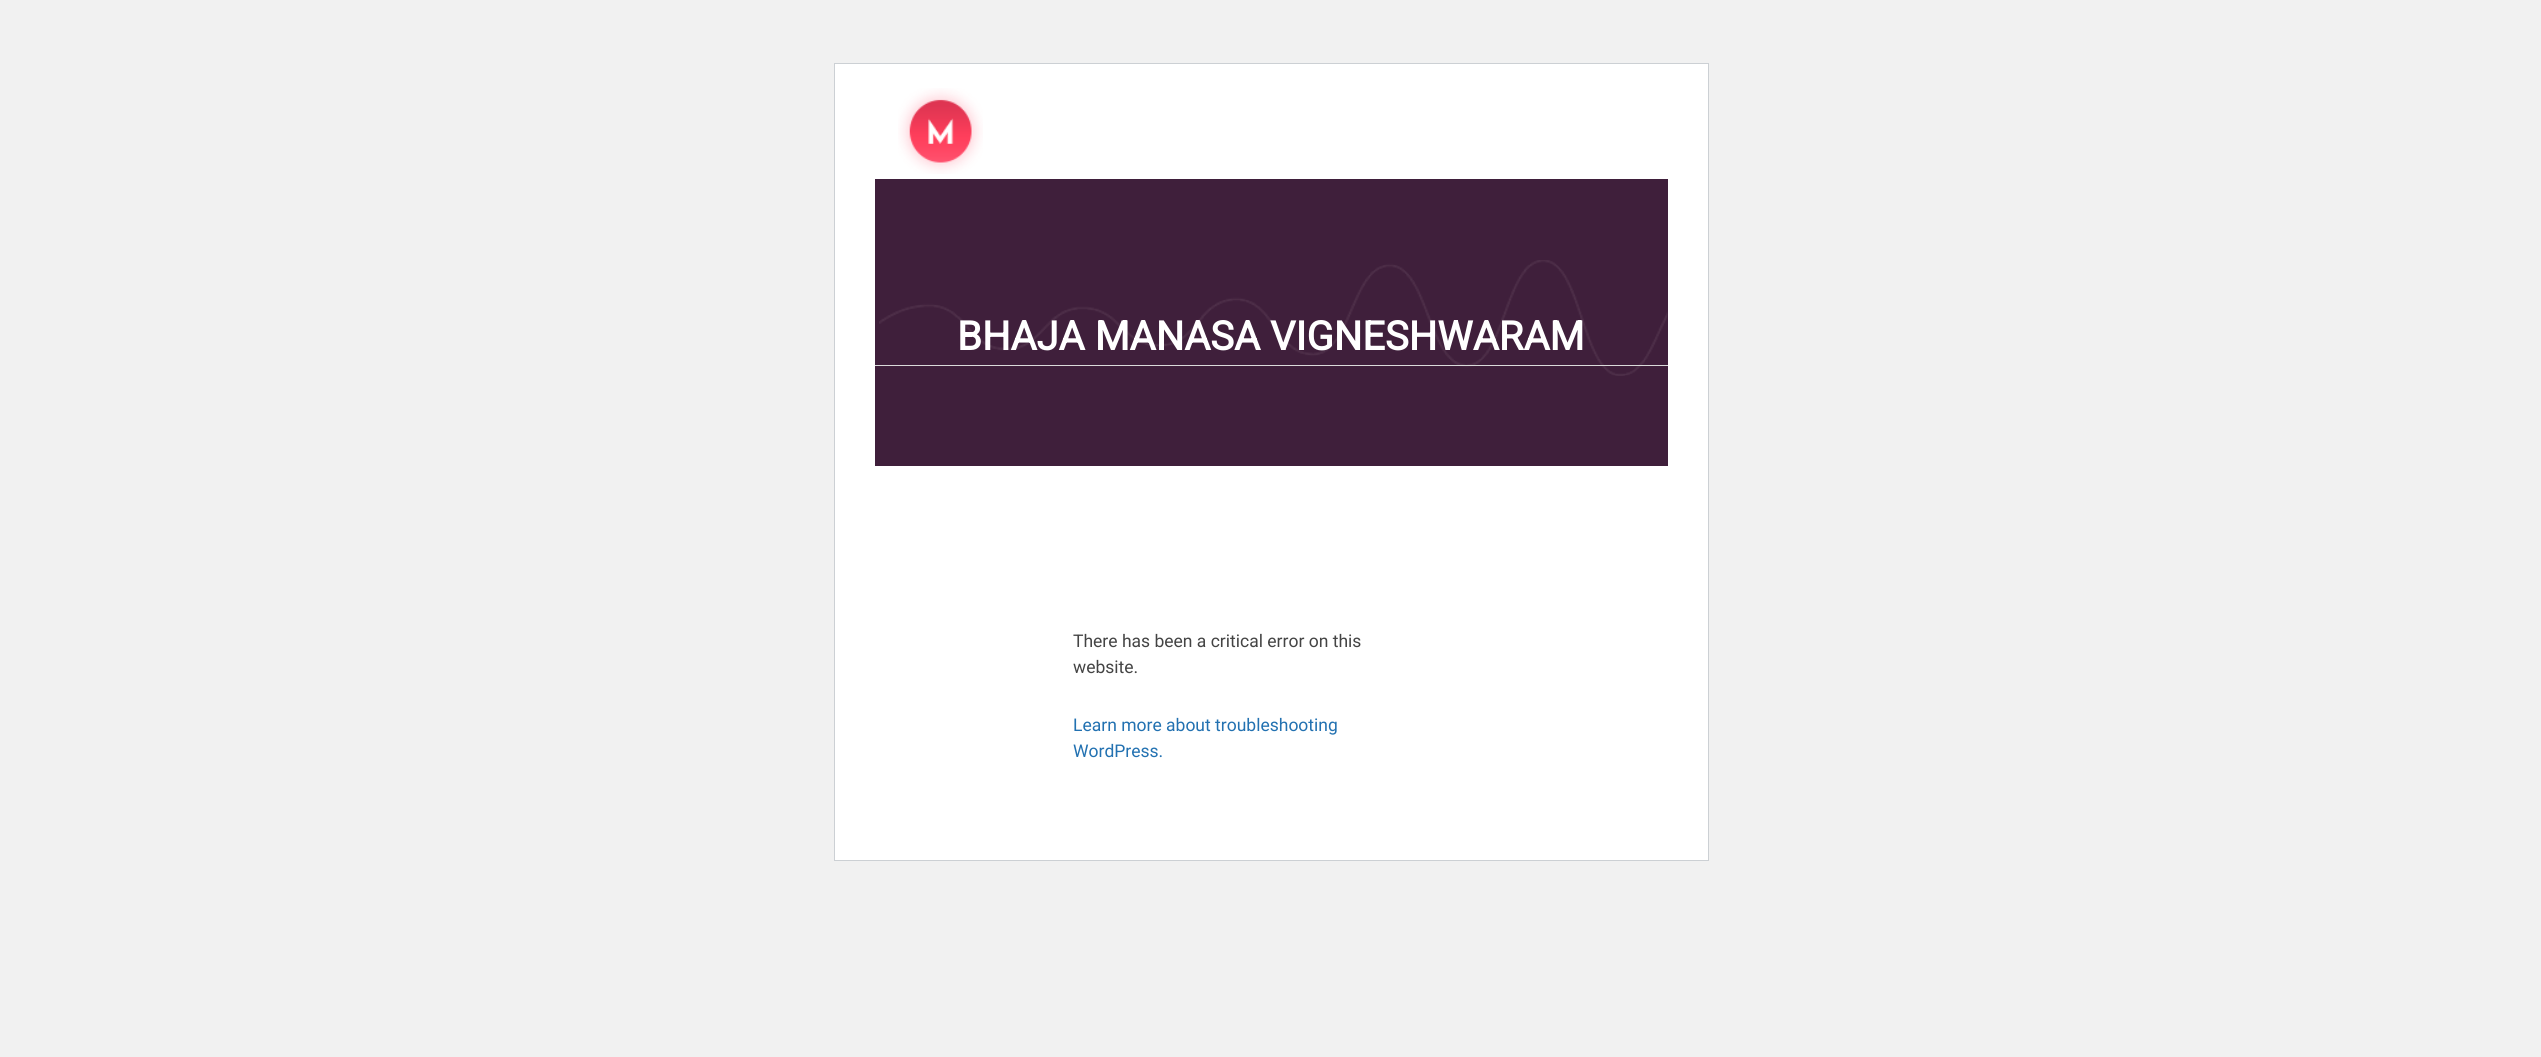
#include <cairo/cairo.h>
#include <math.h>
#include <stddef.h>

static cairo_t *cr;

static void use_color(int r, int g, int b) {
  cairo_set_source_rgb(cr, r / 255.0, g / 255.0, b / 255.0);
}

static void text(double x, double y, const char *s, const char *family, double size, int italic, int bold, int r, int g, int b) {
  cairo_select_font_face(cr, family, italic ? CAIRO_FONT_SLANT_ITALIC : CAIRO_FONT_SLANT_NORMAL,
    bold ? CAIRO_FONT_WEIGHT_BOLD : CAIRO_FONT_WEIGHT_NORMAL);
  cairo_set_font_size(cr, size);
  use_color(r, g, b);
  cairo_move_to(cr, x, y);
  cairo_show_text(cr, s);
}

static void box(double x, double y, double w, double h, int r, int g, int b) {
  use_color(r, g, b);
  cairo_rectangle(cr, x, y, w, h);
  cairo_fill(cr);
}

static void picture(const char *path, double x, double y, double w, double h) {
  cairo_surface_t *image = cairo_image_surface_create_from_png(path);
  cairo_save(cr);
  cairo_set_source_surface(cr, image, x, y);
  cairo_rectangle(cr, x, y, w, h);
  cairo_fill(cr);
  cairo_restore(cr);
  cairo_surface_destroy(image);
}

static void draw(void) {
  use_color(241, 241, 241);
  cairo_paint(cr);
  use_color(255, 255, 255);
  cairo_rectangle(cr, 834.5, 63.5, 874, 797);
  cairo_fill_preserve(cr);
  use_color(204, 208, 212);
  cairo_set_line_width(cr, 1);
  cairo_stroke(cr);
  picture("img_01.png", 898, 88, 85, 86);
  box(875, 179, 793, 287, 63, 31, 59);
  picture("img_02.png", 879, 260, 789, 116);
  box(875, 365, 793, 1, 218, 218, 218);
  text(957, 350, "BHAJA MANASA VIGNESHWARAM", "Roboto", 40, 0, 1, 255, 255, 255);
  text(1073, 647, "There has been a critical error on this", "Roboto", 17.5, 0, 0, 68, 68, 68);
  text(1073, 673, "website.", "Roboto", 17.5, 0, 0, 68, 68, 68);
  text(1073, 731, "Learn more about troubleshooting", "Roboto", 17.5, 0, 0, 34, 113, 177);
  text(1073, 757, "WordPress.", "Roboto", 17.5, 0, 0, 34, 113, 177);
}

int main(void) {
  cairo_surface_t *surface = cairo_image_surface_create(CAIRO_FORMAT_RGB24, 2541, 1057);
  cr = cairo_create(surface);
  cairo_font_options_t *options = cairo_font_options_create();
  cairo_font_options_set_hint_metrics(options, CAIRO_HINT_METRICS_OFF);
  cairo_font_options_set_hint_style(options, CAIRO_HINT_STYLE_NONE);
  cairo_set_font_options(cr, options);
  cairo_set_miter_limit(cr, 4);
  draw();
  cairo_surface_write_to_png(surface, "out.png");
  cairo_font_options_destroy(options);
  cairo_destroy(cr);
  cairo_surface_destroy(surface);
  return 0;
}
